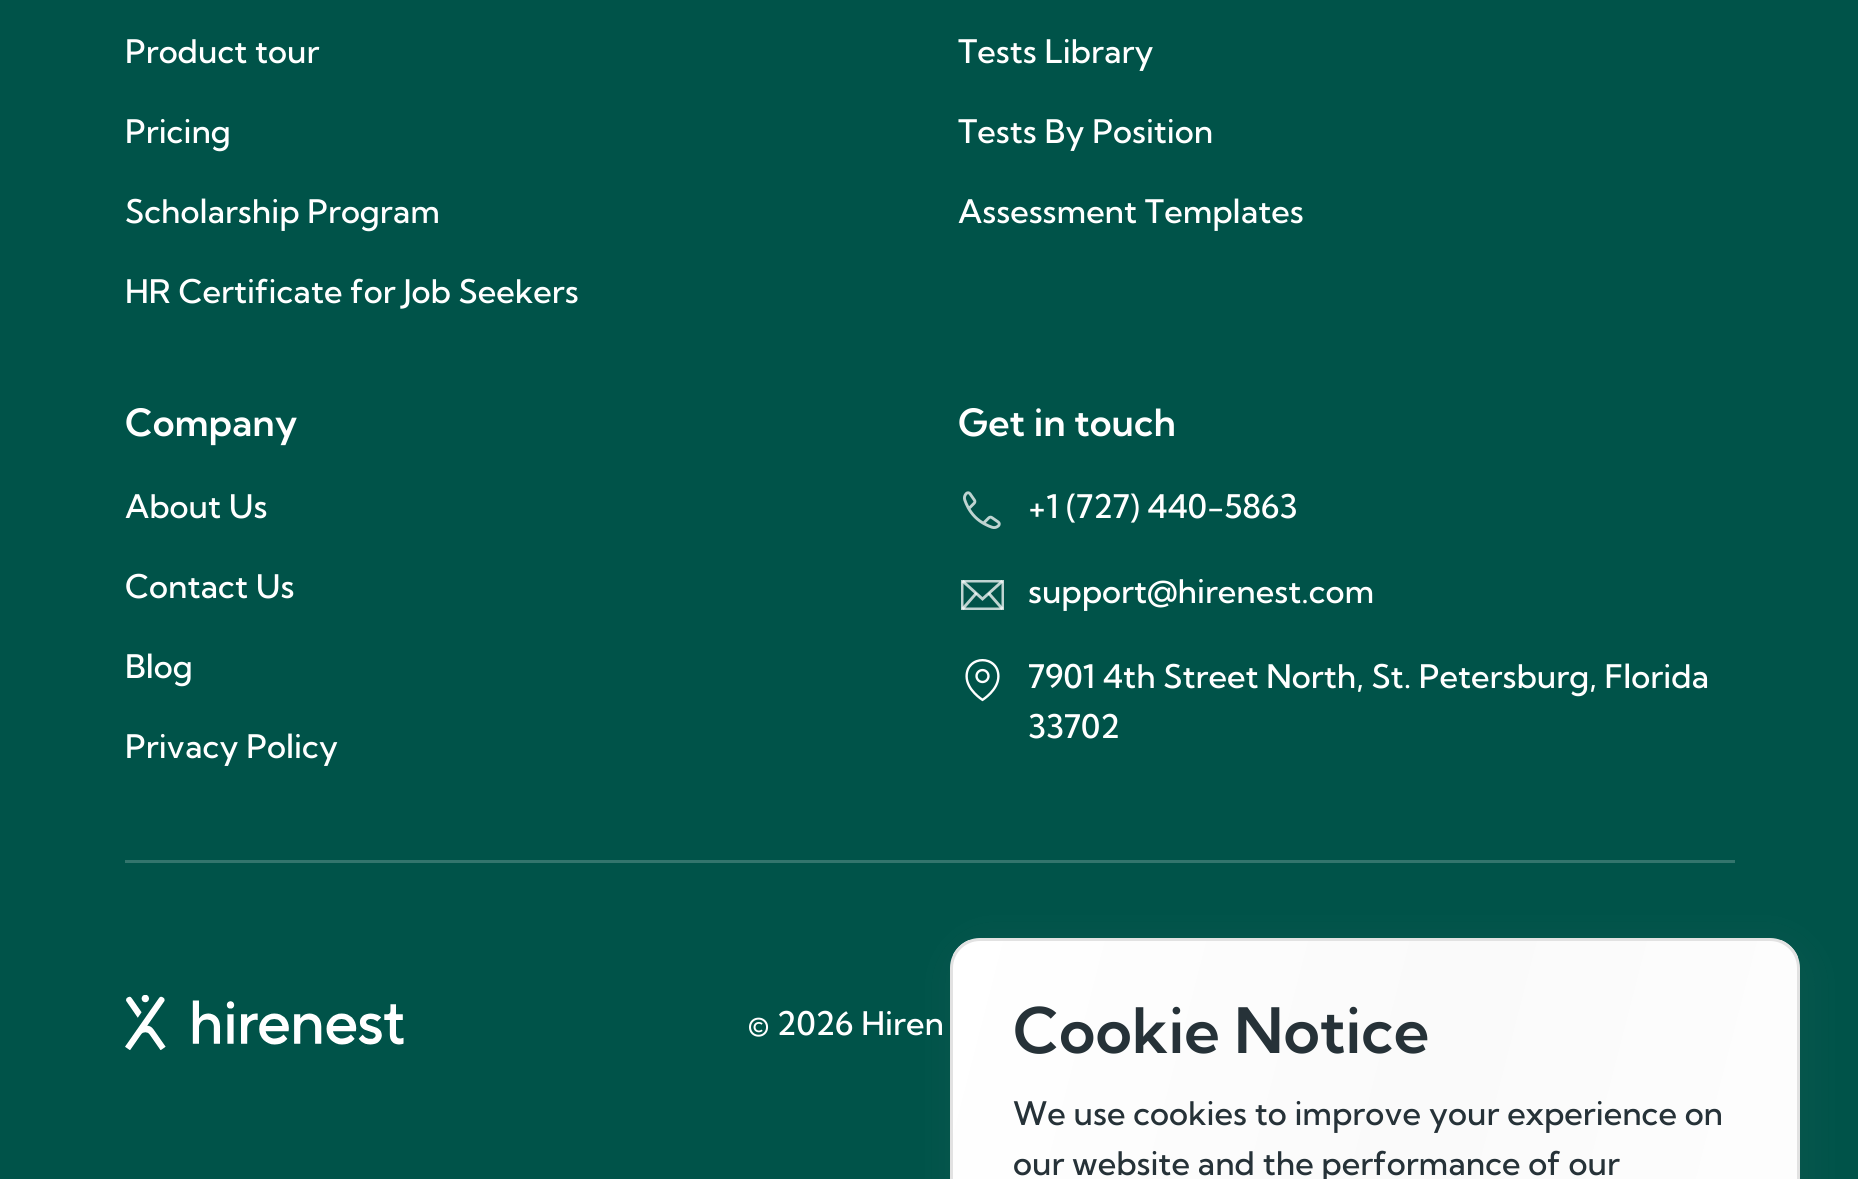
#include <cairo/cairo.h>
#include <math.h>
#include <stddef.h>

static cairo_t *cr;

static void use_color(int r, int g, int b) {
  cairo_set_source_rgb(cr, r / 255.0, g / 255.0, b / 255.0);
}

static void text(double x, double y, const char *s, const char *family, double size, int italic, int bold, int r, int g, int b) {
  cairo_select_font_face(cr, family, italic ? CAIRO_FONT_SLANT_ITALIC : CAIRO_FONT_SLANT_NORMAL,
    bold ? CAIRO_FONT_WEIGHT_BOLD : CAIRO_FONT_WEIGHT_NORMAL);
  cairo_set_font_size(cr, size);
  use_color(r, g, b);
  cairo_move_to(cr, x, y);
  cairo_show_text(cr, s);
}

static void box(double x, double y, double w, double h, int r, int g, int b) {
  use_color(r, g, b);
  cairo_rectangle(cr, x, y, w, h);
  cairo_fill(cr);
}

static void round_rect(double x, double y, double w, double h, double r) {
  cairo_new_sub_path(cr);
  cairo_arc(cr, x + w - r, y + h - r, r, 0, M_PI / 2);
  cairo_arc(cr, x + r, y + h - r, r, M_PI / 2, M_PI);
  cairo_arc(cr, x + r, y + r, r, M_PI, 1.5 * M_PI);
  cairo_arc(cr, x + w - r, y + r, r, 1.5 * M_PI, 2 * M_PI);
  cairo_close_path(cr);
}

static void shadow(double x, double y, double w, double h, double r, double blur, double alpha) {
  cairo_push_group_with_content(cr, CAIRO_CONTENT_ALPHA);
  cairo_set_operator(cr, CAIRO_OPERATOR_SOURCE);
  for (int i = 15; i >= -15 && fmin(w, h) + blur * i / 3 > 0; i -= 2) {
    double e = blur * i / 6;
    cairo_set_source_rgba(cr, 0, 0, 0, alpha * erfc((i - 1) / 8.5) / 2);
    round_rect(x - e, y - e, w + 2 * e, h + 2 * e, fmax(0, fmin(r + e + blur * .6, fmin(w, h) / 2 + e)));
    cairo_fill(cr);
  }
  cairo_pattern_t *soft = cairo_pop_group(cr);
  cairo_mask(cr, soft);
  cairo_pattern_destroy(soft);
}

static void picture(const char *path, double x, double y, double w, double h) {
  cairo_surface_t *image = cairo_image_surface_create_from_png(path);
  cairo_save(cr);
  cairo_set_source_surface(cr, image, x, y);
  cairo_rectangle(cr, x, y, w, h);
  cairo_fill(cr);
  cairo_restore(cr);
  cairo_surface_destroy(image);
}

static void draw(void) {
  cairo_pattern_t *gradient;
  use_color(0, 83, 73);
  cairo_paint(cr);
  picture("img_01.png", 963, 491, 38, 38);
  cairo_rectangle(cr, 962.25, 581.25, 40.5, 27.5);
  use_color(191, 212, 210);
  cairo_set_line_width(cr, 2.5);
  cairo_stroke(cr);
  cairo_new_path(cr);
  cairo_move_to(cr, 962.5, 581);
  cairo_line_to(cr, 982.5, 599);
  cairo_line_to(cr, 1002.5, 581);
  cairo_set_source_rgba(cr, 1, 1, 1, 0.75);
  cairo_set_line_width(cr, 2.9);
  cairo_stroke(cr);
  cairo_new_path(cr);
  cairo_move_to(cr, 962.5, 609);
  cairo_line_to(cr, 976.5, 593);
  cairo_move_to(cr, 1002.5, 609);
  cairo_line_to(cr, 988.5, 593);
  cairo_close_path(cr);
  cairo_stroke(cr);
  picture("img_02.png", 965, 659, 35, 43);
  box(125, 860, 1610, 3, 51, 117, 109);
  picture("img_03.png", 125, 995, 279, 55);
  use_color(135, 135, 135);
  shadow(955, 945, 850, 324, 30, 20, 0.08);
  cairo_save(cr);
  round_rect(950, 938, 850, 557, 30);
  cairo_clip(cr);
  gradient = cairo_pattern_create_linear(912, 1097, 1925, 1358);
  cairo_pattern_add_color_stop_rgba(gradient, 0, 1, 1, 1, 1);
  cairo_pattern_add_color_stop_rgba(gradient, 0.48, 0.98, 0.98, 0.98, 1);
  cairo_pattern_add_color_stop_rgba(gradient, 1, 1, 1, 1, 1);
  cairo_set_source(cr, gradient);
  cairo_pattern_destroy(gradient);
  cairo_rectangle(cr, 953, 940, 845, 239);
  cairo_fill(cr);
  cairo_restore(cr);
  round_rect(951.5, 939.5, 847, 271, 28.5);
  use_color(226, 226, 226);
  cairo_set_line_width(cr, 3);
  cairo_stroke(cr);
  text(125, 63, "Product tour", "Kumbh Sans Medium", 32.5, 0, 0, 255, 255, 255);
  text(125, 143, "Pricing", "Kumbh Sans Medium", 32.5, 0, 0, 255, 255, 255);
  text(125, 223, "Scholarship Program", "Kumbh Sans Medium", 32.5, 0, 0, 255, 255, 255);
  text(125, 303, "HR Certificate for Job Seekers", "Kumbh Sans Medium", 32.5, 0, 0, 255, 255, 255);
  text(958, 63, "Tests Library", "Kumbh Sans Medium", 32.5, 0, 0, 255, 255, 255);
  text(958, 143, "Tests By Position", "Kumbh Sans Medium", 32.5, 0, 0, 255, 255, 255);
  text(958, 223, "Assessment Templates", "Kumbh Sans Medium", 32.5, 0, 0, 255, 255, 255);
  text(125, 436, "Company", "Kumbh Sans SemiBold", 37.5, 0, 0, 255, 255, 255);
  text(125, 518, "About Us", "Kumbh Sans Medium", 32.5, 0, 0, 255, 255, 255);
  text(125, 598, "Contact Us", "Kumbh Sans Medium", 32.5, 0, 0, 255, 255, 255);
  text(125, 678, "Blog", "Kumbh Sans Medium", 32.5, 0, 0, 255, 255, 255);
  text(125, 758, "Privacy Policy", "Kumbh Sans Medium", 32.5, 0, 0, 255, 255, 255);
  text(958, 436, "Get in touch", "Kumbh Sans SemiBold", 37.5, 0, 0, 255, 255, 255);
  text(1028, 518, "+1 (727) 440-5863", "Kumbh Sans Medium", 32.5, 0, 0, 255, 255, 255);
  text(1028, 603, "support@hirenest.com", "Kumbh Sans Medium", 32.5, 0, 0, 255, 255, 255);
  text(1028, 688, "7901 4th Street North, St. Petersburg, Florida", "Kumbh Sans Medium", 32.5, 0, 0, 255, 255, 255);
  text(1028, 738, "33702", "Kumbh Sans Medium", 32.5, 0, 0, 255, 255, 255);
  text(748, 1035, "© 2026 Hiren", "Kumbh Sans Medium", 32.5, 0, 0, 255, 255, 255);
  text(1013, 1053, "Cookie Notice", "Kumbh Sans SemiBold", 62.5, 0, 0, 38, 50, 56);
  text(1013, 1125, "We use cookies to improve your experience on", "Kumbh Sans Medium", 32.5, 0, 0, 38, 50, 56);
  text(1013, 1175, "our website and the performance of our", "Kumbh Sans Medium", 32.5, 0, 0, 38, 50, 56);
}

int main(void) {
  cairo_surface_t *surface = cairo_image_surface_create(CAIRO_FORMAT_RGB24, 1858, 1179);
  cr = cairo_create(surface);
  cairo_font_options_t *options = cairo_font_options_create();
  cairo_font_options_set_hint_metrics(options, CAIRO_HINT_METRICS_OFF);
  cairo_font_options_set_hint_style(options, CAIRO_HINT_STYLE_NONE);
  cairo_set_font_options(cr, options);
  cairo_set_miter_limit(cr, 4);
  draw();
  cairo_surface_write_to_png(surface, "out.png");
  cairo_font_options_destroy(options);
  cairo_destroy(cr);
  cairo_surface_destroy(surface);
  return 0;
}
